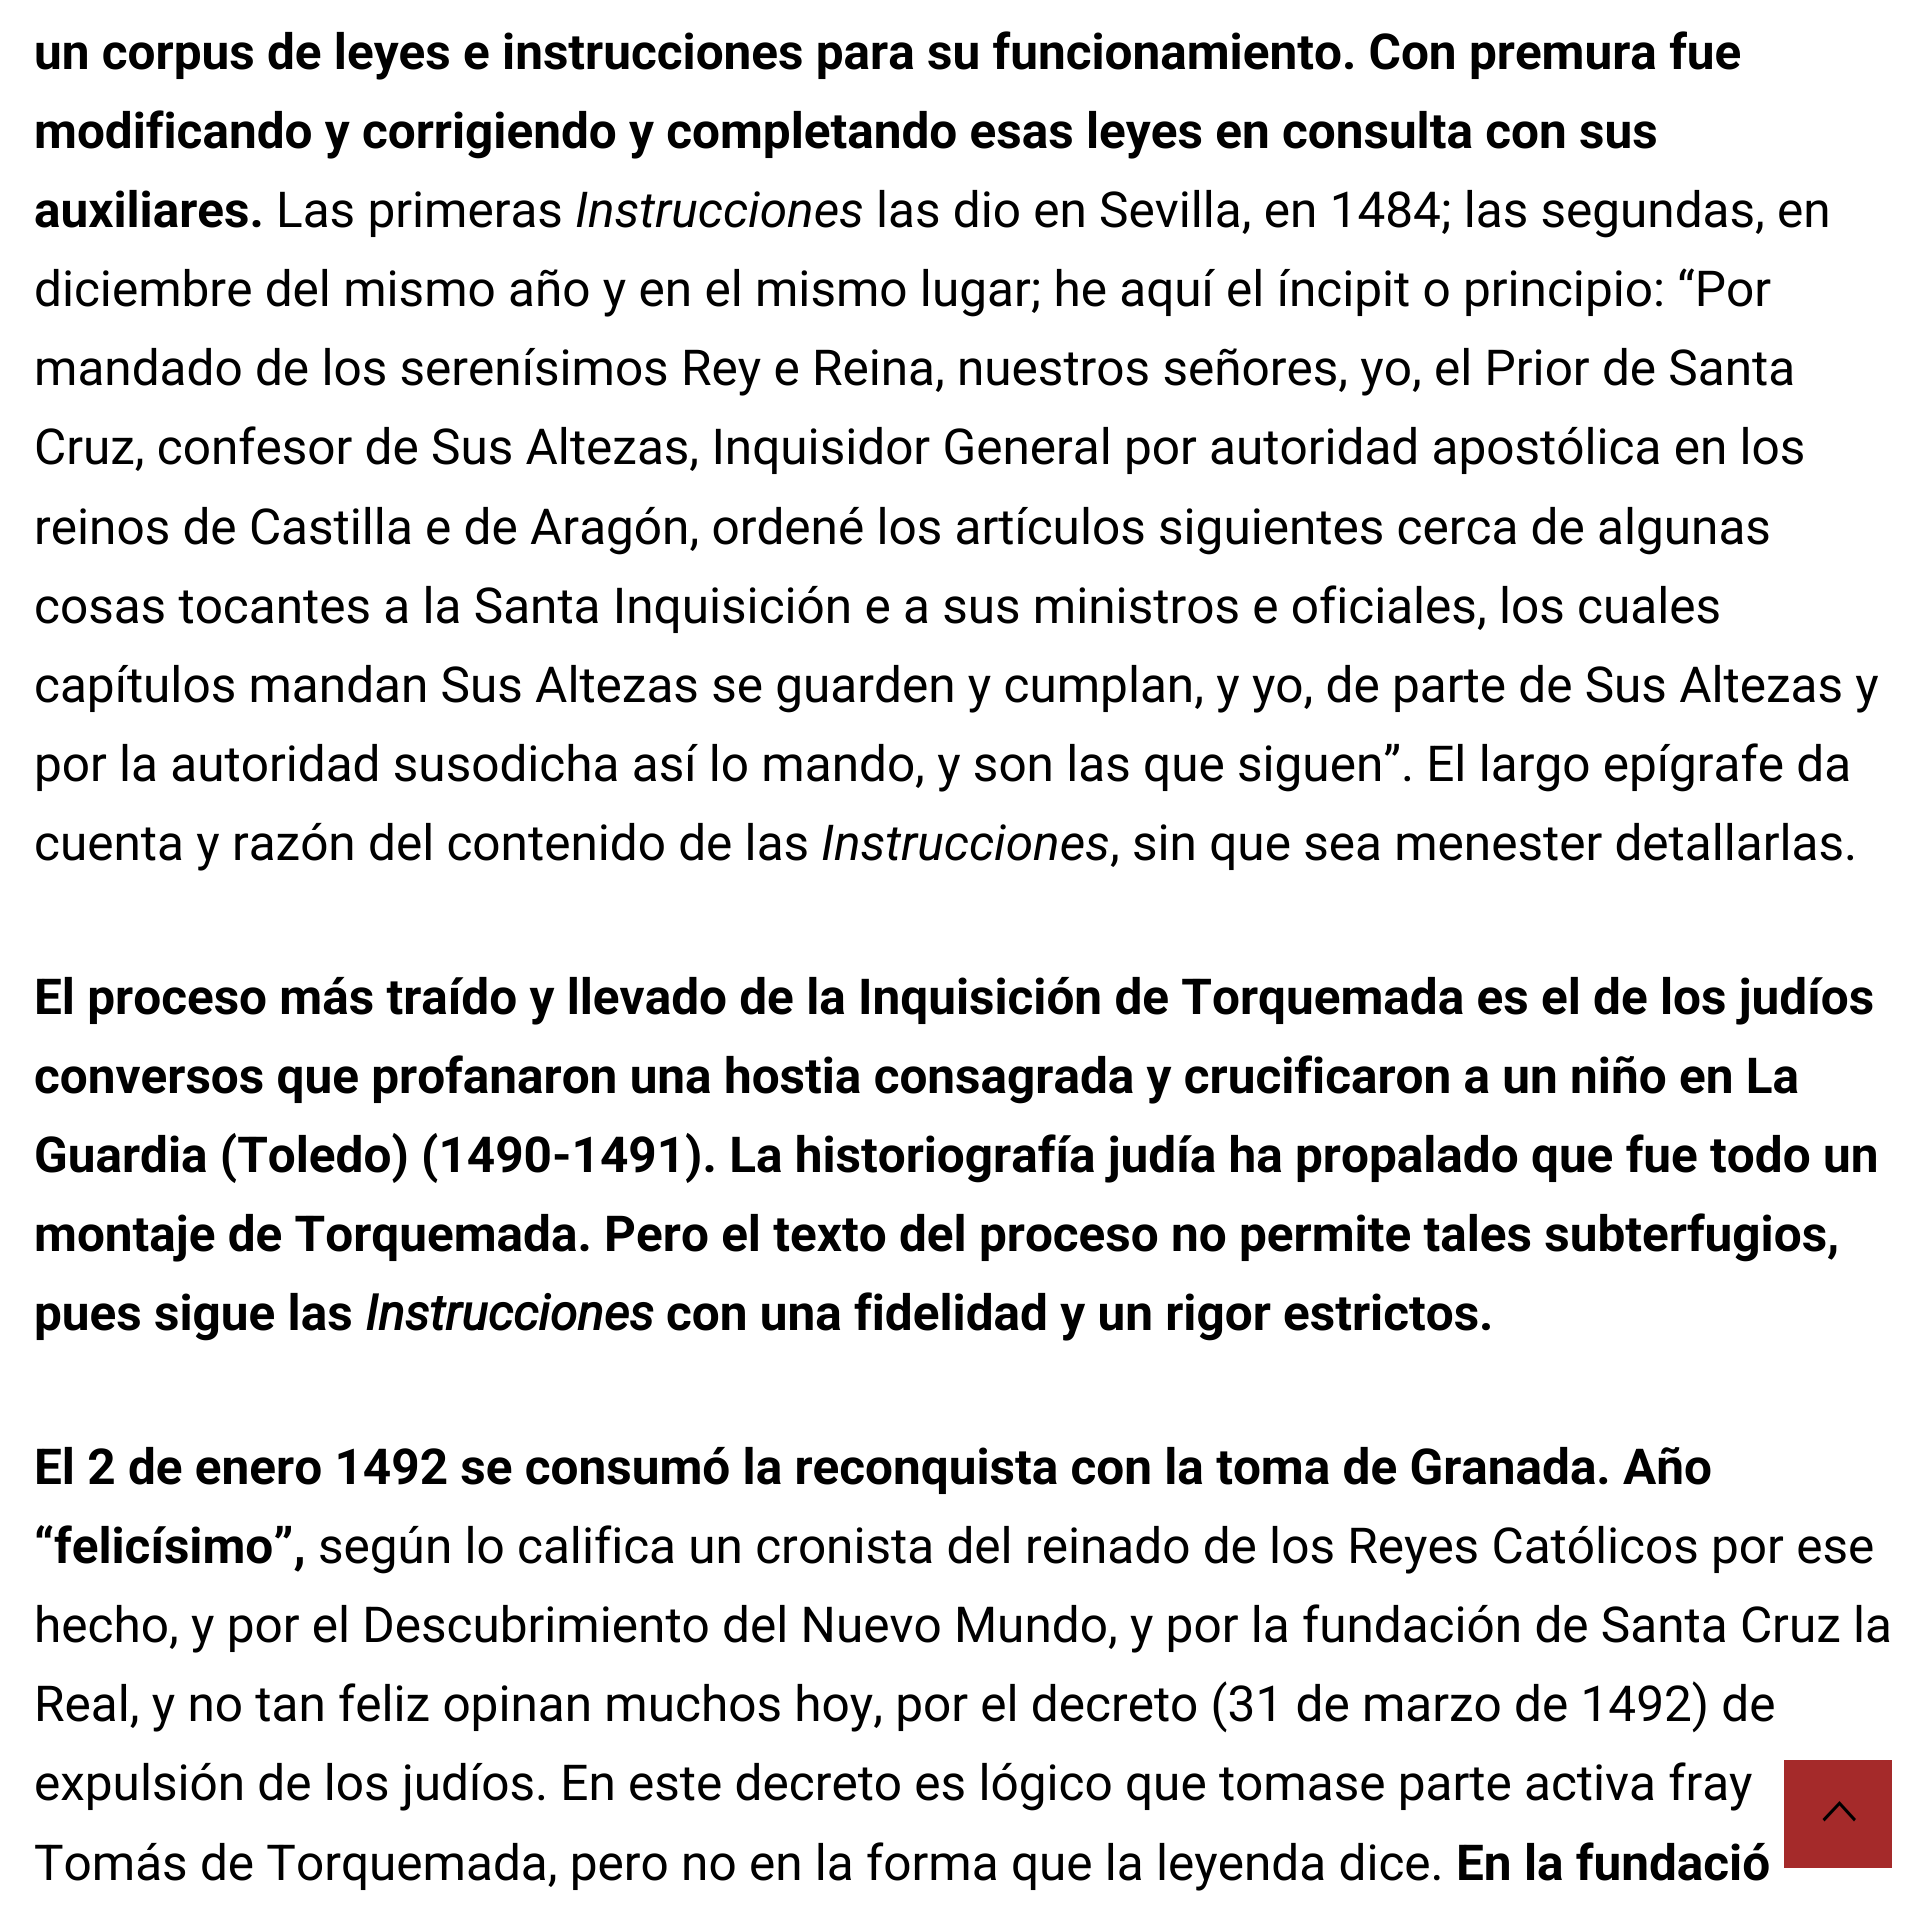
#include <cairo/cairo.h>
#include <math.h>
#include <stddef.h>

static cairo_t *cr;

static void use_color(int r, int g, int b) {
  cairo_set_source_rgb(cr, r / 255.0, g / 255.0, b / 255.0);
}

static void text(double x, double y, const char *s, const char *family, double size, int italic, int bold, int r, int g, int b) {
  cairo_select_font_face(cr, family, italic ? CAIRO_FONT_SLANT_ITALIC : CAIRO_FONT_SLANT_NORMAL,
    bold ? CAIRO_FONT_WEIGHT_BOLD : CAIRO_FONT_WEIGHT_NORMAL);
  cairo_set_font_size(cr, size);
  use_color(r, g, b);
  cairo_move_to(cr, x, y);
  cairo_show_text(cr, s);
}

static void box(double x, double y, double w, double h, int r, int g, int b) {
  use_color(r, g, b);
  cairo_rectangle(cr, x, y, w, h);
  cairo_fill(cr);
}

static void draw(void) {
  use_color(255, 255, 255);
  cairo_paint(cr);
  box(1784, 1760, 108, 108, 165, 42, 42);
  use_color(0, 0, 0);
  cairo_new_path(cr);
  cairo_move_to(cr, 1854, 1821.5);
  cairo_line_to(cr, 1839.5, 1805.5);
  cairo_line_to(cr, 1824.5, 1821.5);
  cairo_line_to(cr, 1822.5, 1819);
  cairo_line_to(cr, 1839.5, 1801);
  cairo_line_to(cr, 1856, 1819);
  cairo_close_path(cr);
  cairo_fill(cr);
  text(34, 69, "un corpus de leyes e instrucciones para su funcionamiento. Con premura fue", "Roboto", 49.5, 0, 1, 0, 0, 0);
  text(34, 148, "modificando y corrigiendo y completando esas leyes en consulta con sus", "Roboto", 49.5, 0, 1, 0, 0, 0);
  text(34, 227, "auxiliares.", "Roboto", 49.5, 0, 1, 0, 0, 0);
  text(276, 227, "Las primeras", "Roboto", 49.5, 0, 0, 0, 0, 0);
  text(575, 227, "Instrucciones", "Roboto", 49.5, 1, 0, 0, 0, 0);
  text(876, 227, "las dio en Sevilla, en 1484; las segundas, en", "Roboto", 49.5, 0, 0, 0, 0, 0);
  text(34, 306, "diciembre del mismo año y en el mismo lugar; he aquí el íncipit o principio: “Por", "Roboto", 49.5, 0, 0, 0, 0, 0);
  text(34, 385, "mandado de los serenísimos Rey e Reina, nuestros señores, yo, el Prior de Santa", "Roboto", 49.5, 0, 0, 0, 0, 0);
  text(34, 464, "Cruz, confesor de Sus Altezas, Inquisidor General por autoridad apostólica en los", "Roboto", 49.5, 0, 0, 0, 0, 0);
  text(34, 544, "reinos de Castilla e de Aragón, ordené los artículos siguientes cerca de algunas", "Roboto", 49.5, 0, 0, 0, 0, 0);
  text(34, 623, "cosas tocantes a la Santa Inquisición e a sus ministros e oficiales, los cuales", "Roboto", 49.5, 0, 0, 0, 0, 0);
  text(34, 702, "capítulos mandan Sus Altezas se guarden y cumplan, y yo, de parte de Sus Altezas y", "Roboto", 49.5, 0, 0, 0, 0, 0);
  text(34, 781, "por la autoridad susodicha así lo mando, y son las que siguen”. El largo epígrafe da", "Roboto", 49.5, 0, 0, 0, 0, 0);
  text(34, 860, "cuenta y razón del contenido de las", "Roboto", 49.5, 0, 0, 0, 0, 0);
  text(821, 860, "Instrucciones", "Roboto", 49.5, 1, 0, 0, 0, 0);
  text(1110, 860, ", sin que sea menester detallarlas.", "Roboto", 49.5, 0, 0, 0, 0, 0);
  text(34, 1014, "El proceso más traído y llevado de la Inquisición de Torquemada es el de los judíos", "Roboto", 49.5, 0, 1, 0, 0, 0);
  text(34, 1093, "conversos que profanaron una hostia consagrada y crucificaron a un niño en La", "Roboto", 49.5, 0, 1, 0, 0, 0);
  text(34, 1172, "Guardia (Toledo) (1490-1491). La historiografía judía ha propalado que fue todo un", "Roboto", 49.5, 0, 1, 0, 0, 0);
  text(34, 1251, "montaje de Torquemada. Pero el texto del proceso no permite tales subterfugios,", "Roboto", 49.5, 0, 1, 0, 0, 0);
  text(34, 1330, "pues sigue las", "Roboto", 49.5, 0, 1, 0, 0, 0);
  text(365, 1330, "Instrucciones", "Roboto", 49.5, 1, 1, 0, 0, 0);
  text(666, 1330, "con una fidelidad y un rigor estrictos.", "Roboto", 49.5, 0, 1, 0, 0, 0);
  text(34, 1484, "El 2 de enero 1492 se consumó la reconquista con la toma de Granada. Año", "Roboto", 49.5, 0, 1, 0, 0, 0);
  text(34, 1563, "“felicísimo”,", "Roboto", 49.5, 0, 1, 0, 0, 0);
  text(318, 1563, "según lo califica un cronista del reinado de los Reyes Católicos por ese", "Roboto", 49.5, 0, 0, 0, 0, 0);
  text(34, 1642, "hecho, y por el Descubrimiento del Nuevo Mundo, y por la fundación de Santa Cruz la", "Roboto", 49.5, 0, 0, 0, 0, 0);
  text(34, 1721, "Real, y no tan feliz opinan muchos hoy, por el decreto (31 de marzo de 1492) de", "Roboto", 49.5, 0, 0, 0, 0, 0);
  text(34, 1800, "expulsión de los judíos. En este decreto es lógico que tomase parte activa fray", "Roboto", 49.5, 0, 0, 0, 0, 0);
  text(34, 1880, "Tomás de Torquemada, pero no en la forma que la leyenda dice.", "Roboto", 49.5, 0, 0, 0, 0, 0);
  text(1456, 1880, "En la fundació", "Roboto", 49.5, 0, 1, 0, 0, 0);
}

int main(void) {
  cairo_surface_t *surface = cairo_image_surface_create(CAIRO_FORMAT_RGB24, 1925, 1911);
  cr = cairo_create(surface);
  cairo_font_options_t *options = cairo_font_options_create();
  cairo_font_options_set_hint_metrics(options, CAIRO_HINT_METRICS_OFF);
  cairo_font_options_set_hint_style(options, CAIRO_HINT_STYLE_NONE);
  cairo_set_font_options(cr, options);
  cairo_set_miter_limit(cr, 4);
  draw();
  cairo_surface_write_to_png(surface, "out.png");
  cairo_font_options_destroy(options);
  cairo_destroy(cr);
  cairo_surface_destroy(surface);
  return 0;
}
